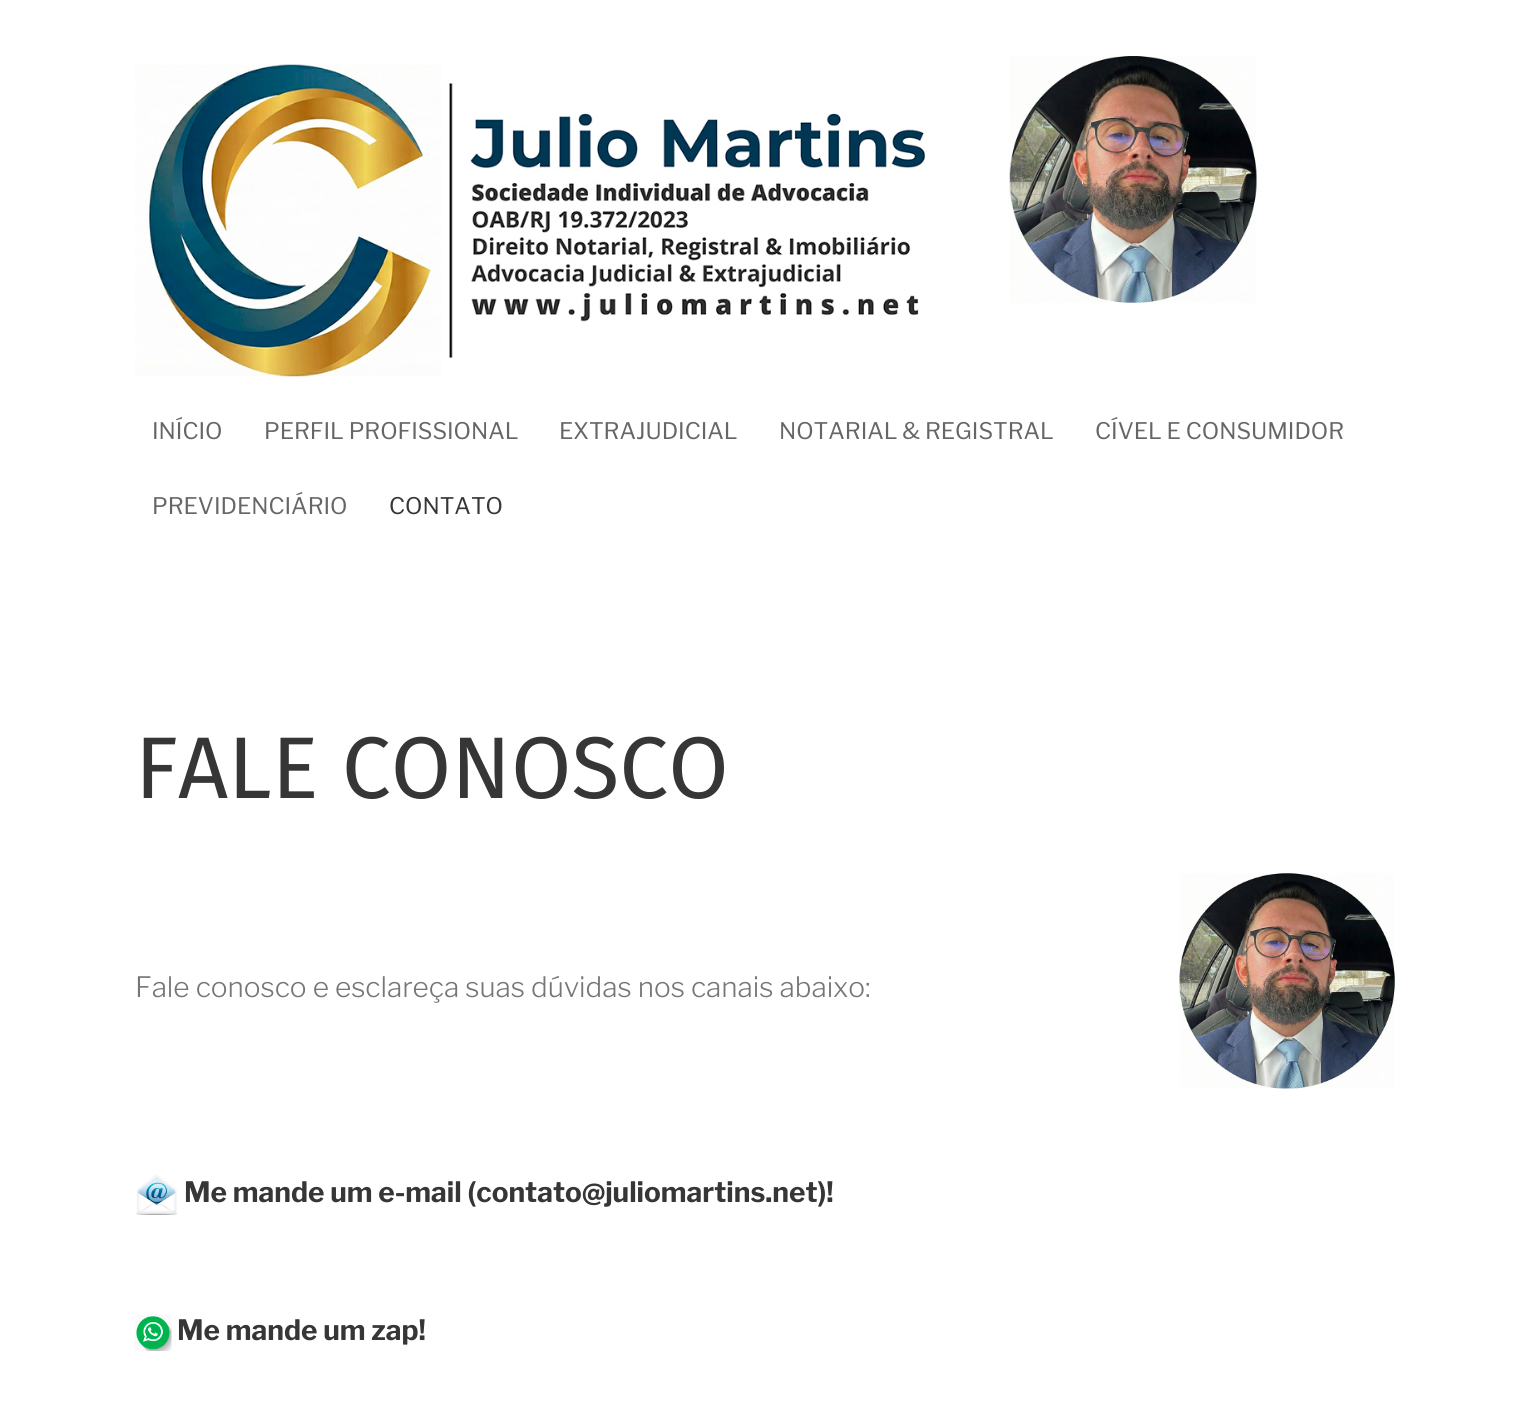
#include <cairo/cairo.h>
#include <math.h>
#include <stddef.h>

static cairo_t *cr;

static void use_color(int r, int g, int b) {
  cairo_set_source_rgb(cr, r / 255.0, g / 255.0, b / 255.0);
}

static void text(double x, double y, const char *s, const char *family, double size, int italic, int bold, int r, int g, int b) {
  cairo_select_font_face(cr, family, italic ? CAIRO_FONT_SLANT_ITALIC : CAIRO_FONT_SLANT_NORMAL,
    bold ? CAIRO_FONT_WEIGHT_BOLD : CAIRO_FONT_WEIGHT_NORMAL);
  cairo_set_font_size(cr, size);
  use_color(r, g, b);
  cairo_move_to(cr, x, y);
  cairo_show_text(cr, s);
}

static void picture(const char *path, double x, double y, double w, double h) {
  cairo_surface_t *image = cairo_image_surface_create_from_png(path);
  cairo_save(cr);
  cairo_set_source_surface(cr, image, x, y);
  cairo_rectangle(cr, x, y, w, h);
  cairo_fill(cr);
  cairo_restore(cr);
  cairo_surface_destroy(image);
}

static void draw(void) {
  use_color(255, 255, 255);
  cairo_paint(cr);
  picture("img_01.png", 135, 64, 790, 313);
  picture("img_02.png", 1009, 56, 248, 247);
  picture("img_03.png", 1179, 873, 216, 216);
  picture("img_04.png", 136, 1174, 42, 41);
  picture("img_05.png", 135, 1314, 37, 37);
  text(152, 439, "INÍCIO", "Libre Franklin", 22.75, 0, 0, 102, 102, 102);
  text(264, 439, "PERFIL PROFISSIONAL", "Libre Franklin", 22.75, 0, 0, 102, 102, 102);
  text(559, 439, "EXTRAJUDICIAL", "Libre Franklin", 22.75, 0, 0, 102, 102, 102);
  text(779, 439, "NOTARIAL & REGISTRAL", "Libre Franklin", 22.75, 0, 0, 102, 102, 102);
  text(1095, 439, "CÍVEL E CONSUMIDOR", "Libre Franklin", 22.75, 0, 0, 102, 102, 102);
  text(152, 514, "PREVIDENCIÁRIO", "Libre Franklin", 22.75, 0, 0, 102, 102, 102);
  text(389, 514, "CONTATO", "Libre Franklin", 22.75, 0, 0, 54, 54, 54);
  text(135, 798, "FALE CONOSCO", "Fira Sans", 87.5, 0, 0, 54, 54, 54);
  text(135, 997, "Fale conosco e esclareça suas dúvidas nos canais abaixo:", "Libre Franklin Light", 28, 0, 0, 118, 118, 118);
  text(184, 1202, "Me mande um e-mail (contato@juliomartins.net)!", "Libre Franklin", 28, 0, 1, 54, 54, 54);
  text(177, 1340, "Me mande um zap!", "Libre Franklin", 28, 0, 1, 54, 54, 54);
}

int main(void) {
  cairo_surface_t *surface = cairo_image_surface_create(CAIRO_FORMAT_RGB24, 1529, 1428);
  cr = cairo_create(surface);
  cairo_font_options_t *options = cairo_font_options_create();
  cairo_font_options_set_hint_metrics(options, CAIRO_HINT_METRICS_OFF);
  cairo_font_options_set_hint_style(options, CAIRO_HINT_STYLE_NONE);
  cairo_set_font_options(cr, options);
  cairo_set_miter_limit(cr, 4);
  draw();
  cairo_surface_write_to_png(surface, "out.png");
  cairo_font_options_destroy(options);
  cairo_destroy(cr);
  cairo_surface_destroy(surface);
  return 0;
}
